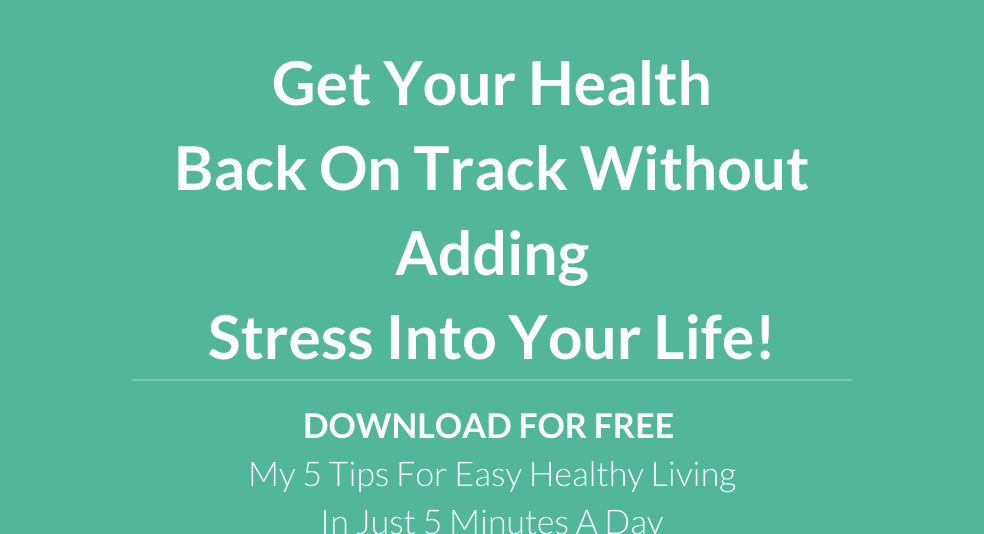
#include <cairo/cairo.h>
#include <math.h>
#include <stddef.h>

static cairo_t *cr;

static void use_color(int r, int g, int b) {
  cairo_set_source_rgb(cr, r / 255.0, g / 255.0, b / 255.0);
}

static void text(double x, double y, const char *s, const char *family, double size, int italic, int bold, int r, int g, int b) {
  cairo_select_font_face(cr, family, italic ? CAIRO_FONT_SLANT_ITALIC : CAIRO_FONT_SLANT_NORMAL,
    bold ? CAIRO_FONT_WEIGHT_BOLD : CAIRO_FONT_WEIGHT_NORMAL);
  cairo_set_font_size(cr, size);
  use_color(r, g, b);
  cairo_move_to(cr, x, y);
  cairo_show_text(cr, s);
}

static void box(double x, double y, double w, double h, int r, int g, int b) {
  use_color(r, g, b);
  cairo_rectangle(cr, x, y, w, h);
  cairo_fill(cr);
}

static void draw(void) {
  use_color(82, 183, 153);
  cairo_paint(cr);
  box(132, 379, 720, 2, 125, 201, 179);
  text(272, 105, "Get Your Health", "Lato", 60.5, 0, 1, 255, 255, 255);
  text(174, 190, "Back On Track Without", "Lato", 60.5, 0, 1, 255, 255, 255);
  text(395, 275, "Adding", "Lato", 60.5, 0, 1, 255, 255, 255);
  text(208, 359, "Stress Into Your Life!", "Lato", 60.5, 0, 1, 255, 255, 255);
  text(303, 438, "DOWNLOAD FOR FREE", "Lato", 34.1, 0, 1, 255, 255, 255);
  text(248, 486, "My 5 Tips For Easy Healthy Living", "Lato Light", 34.1, 0, 0, 255, 255, 255);
  text(320, 534, "In Just 5 Minutes A Day", "Lato Light", 34.1, 0, 0, 255, 255, 255);
}

int main(void) {
  cairo_surface_t *surface = cairo_image_surface_create(CAIRO_FORMAT_RGB24, 984, 534);
  cr = cairo_create(surface);
  cairo_font_options_t *options = cairo_font_options_create();
  cairo_font_options_set_hint_metrics(options, CAIRO_HINT_METRICS_OFF);
  cairo_font_options_set_hint_style(options, CAIRO_HINT_STYLE_NONE);
  cairo_set_font_options(cr, options);
  cairo_set_miter_limit(cr, 4);
  draw();
  cairo_surface_write_to_png(surface, "out.png");
  cairo_font_options_destroy(options);
  cairo_destroy(cr);
  cairo_surface_destroy(surface);
  return 0;
}
